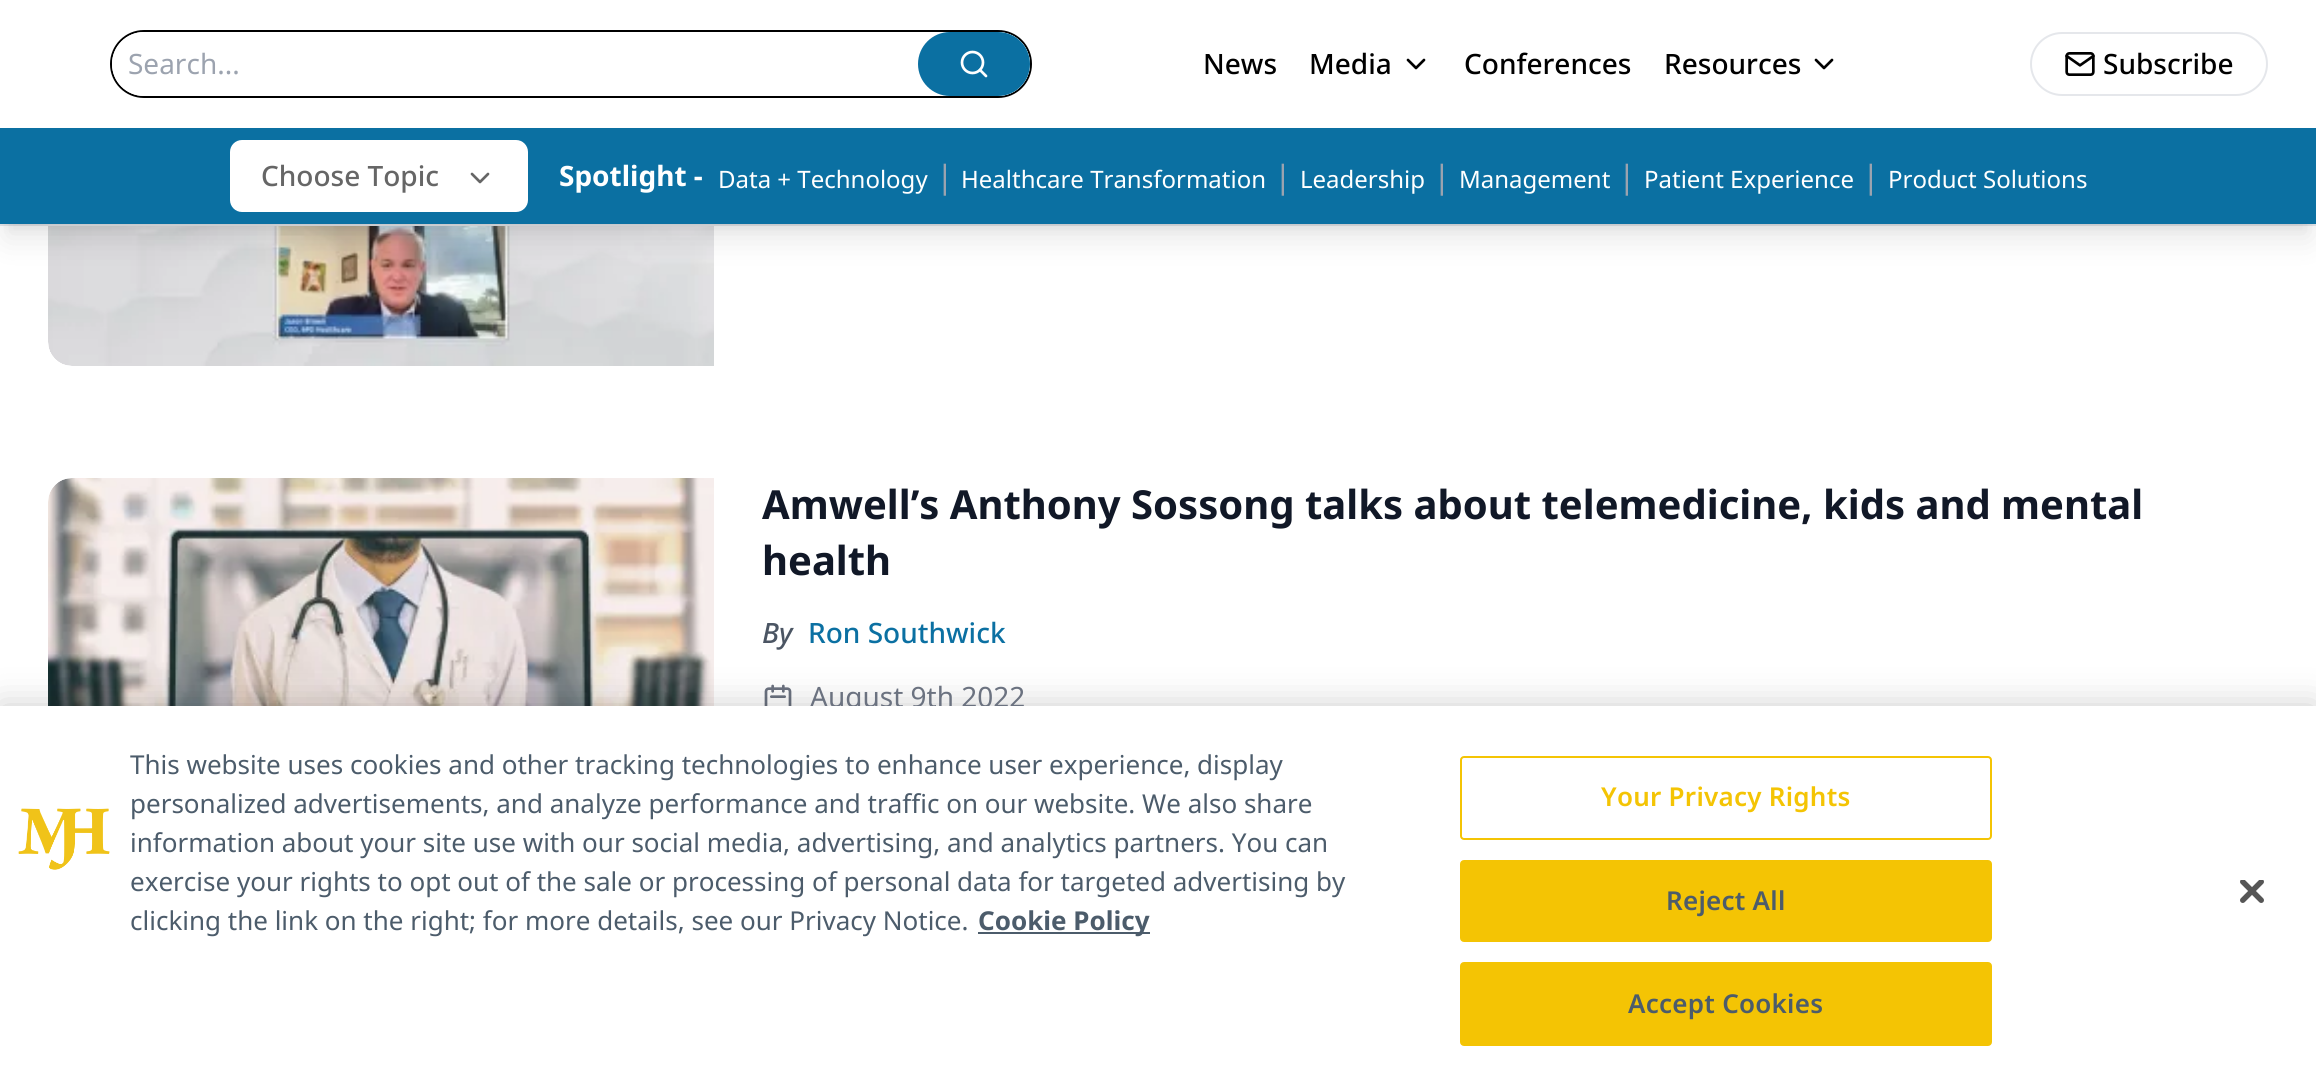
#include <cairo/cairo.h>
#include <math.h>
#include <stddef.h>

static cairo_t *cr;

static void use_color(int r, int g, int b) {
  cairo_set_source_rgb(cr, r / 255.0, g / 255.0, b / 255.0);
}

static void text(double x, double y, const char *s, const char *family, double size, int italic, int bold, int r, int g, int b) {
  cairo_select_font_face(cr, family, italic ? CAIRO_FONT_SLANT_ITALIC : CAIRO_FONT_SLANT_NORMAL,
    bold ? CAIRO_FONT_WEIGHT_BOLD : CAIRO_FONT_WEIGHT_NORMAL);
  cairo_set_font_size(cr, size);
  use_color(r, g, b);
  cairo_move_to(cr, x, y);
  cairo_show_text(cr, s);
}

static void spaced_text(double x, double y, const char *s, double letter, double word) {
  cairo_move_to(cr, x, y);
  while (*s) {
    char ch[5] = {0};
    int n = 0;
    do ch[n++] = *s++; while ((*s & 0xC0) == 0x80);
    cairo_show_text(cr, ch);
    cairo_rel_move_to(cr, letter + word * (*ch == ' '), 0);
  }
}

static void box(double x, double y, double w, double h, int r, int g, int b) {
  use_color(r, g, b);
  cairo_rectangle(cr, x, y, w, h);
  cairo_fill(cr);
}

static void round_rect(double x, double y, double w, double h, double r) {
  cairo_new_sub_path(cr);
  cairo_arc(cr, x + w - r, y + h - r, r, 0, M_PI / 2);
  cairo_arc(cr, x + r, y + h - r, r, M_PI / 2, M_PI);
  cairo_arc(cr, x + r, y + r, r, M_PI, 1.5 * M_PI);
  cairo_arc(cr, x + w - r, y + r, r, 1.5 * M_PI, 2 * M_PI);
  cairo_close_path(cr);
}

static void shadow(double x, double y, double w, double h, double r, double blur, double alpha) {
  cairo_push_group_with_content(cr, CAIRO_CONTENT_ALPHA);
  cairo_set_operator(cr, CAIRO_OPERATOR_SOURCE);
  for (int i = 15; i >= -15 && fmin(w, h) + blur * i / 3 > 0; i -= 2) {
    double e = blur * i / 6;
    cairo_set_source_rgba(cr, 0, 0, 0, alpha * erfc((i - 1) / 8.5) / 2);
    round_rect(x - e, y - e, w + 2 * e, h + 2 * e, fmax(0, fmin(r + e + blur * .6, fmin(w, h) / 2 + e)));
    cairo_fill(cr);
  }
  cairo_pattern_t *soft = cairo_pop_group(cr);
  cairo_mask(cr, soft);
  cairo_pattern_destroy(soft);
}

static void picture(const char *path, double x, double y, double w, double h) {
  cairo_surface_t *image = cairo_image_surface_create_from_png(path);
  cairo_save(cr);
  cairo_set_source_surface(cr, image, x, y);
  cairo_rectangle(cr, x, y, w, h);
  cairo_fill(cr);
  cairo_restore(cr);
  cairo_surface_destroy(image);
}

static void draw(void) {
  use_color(255, 255, 255);
  cairo_paint(cr);
  box(0, 224, 2316, 2, 229, 231, 235);
  round_rect(111, 31, 920, 66, 33);
  use_color(0, 0, 0);
  cairo_stroke(cr);
  use_color(255, 255, 255);
  round_rect(112, 32, 918, 64, 32);
  cairo_fill(cr);
  use_color(11, 112, 162);
  round_rect(918, 32, 112, 64, 32);
  cairo_fill(cr);
  cairo_arc(cr, 972.5, 62.5, 10.5, 0, 2 * M_PI);
  use_color(255, 255, 255);
  cairo_set_line_width(cr, 2.7);
  cairo_stroke(cr);
  cairo_new_path(cr);
  cairo_move_to(cr, 986, 76);
  cairo_line_to(cr, 980, 70);
  cairo_set_line_cap(cr, CAIRO_LINE_CAP_ROUND);
  cairo_set_line_join(cr, CAIRO_LINE_JOIN_ROUND);
  cairo_stroke(cr);
  cairo_new_path(cr);
  cairo_move_to(cr, 1408, 60);
  cairo_line_to(cr, 1416, 68);
  cairo_line_to(cr, 1424, 60);
  use_color(0, 0, 0);
  cairo_stroke(cr);
  cairo_new_path(cr);
  cairo_move_to(cr, 1816, 60);
  cairo_line_to(cr, 1824, 68);
  cairo_line_to(cr, 1832, 60);
  cairo_stroke(cr);
  round_rect(2031, 33, 236, 62, 31);
  use_color(229, 231, 235);
  cairo_set_line_width(cr, 2);
  cairo_set_line_cap(cr, CAIRO_LINE_CAP_BUTT);
  cairo_set_line_join(cr, CAIRO_LINE_JOIN_MITER);
  cairo_stroke(cr);
  picture("img_01.png", 2065, 52, 30, 24);
  picture("img_02.png", 48, 226, 666, 140);
  use_color(0, 0, 0);
  shadow(8, 144, 2300, 80, 0, 6, 0.1);
  shadow(6, 154, 2304, 84, 0, 15, 0.1);
  box(0, 128, 2316, 96, 11, 112, 162);
  use_color(255, 255, 255);
  round_rect(230, 140, 298, 72, 12);
  cairo_fill(cr);
  cairo_new_path(cr);
  cairo_move_to(cr, 472, 174);
  cairo_line_to(cr, 480, 182);
  cairo_line_to(cr, 488, 174);
  use_color(102, 102, 102);
  cairo_set_line_width(cr, 2.7);
  cairo_set_line_cap(cr, CAIRO_LINE_CAP_ROUND);
  cairo_set_line_join(cr, CAIRO_LINE_JOIN_ROUND);
  cairo_stroke(cr);
  picture("img_03.png", 48, 478, 666, 228);
  picture("img_04.png", 764, 684, 28, 22);
  use_color(0, 0, 0);
  shadow(0, 706, 2316, 380, 0, 18, 0.2);
  text(128, 74, "Search...", "Noto Sans", 28, 0, 0, 156, 163, 175);
  text(1203, 74, "News", "Noto Sans Medium", 28, 0, 0, 0, 0, 0);
  text(1309, 74, "Media", "Noto Sans Medium", 28, 0, 0, 0, 0, 0);
  text(1464, 74, "Conferences", "Noto Sans Medium", 28, 0, 0, 0, 0, 0);
  text(1664, 74, "Resources", "Noto Sans Medium", 28, 0, 0, 0, 0, 0);
  text(2103, 74, "Subscribe", "Noto Sans Medium", 28, 0, 0, 0, 0, 0);
  text(261, 186, "Choose Topic", "Noto Sans Medium", 28, 0, 0, 102, 102, 102);
  text(559, 186, "Spotlight -", "Noto Sans", 28, 0, 1, 255, 255, 255);
  text(718, 188, "Data + Technology", "Noto Sans", 24, 0, 0, 255, 255, 255);
  text(936, 188, "|", "Noto Sans", 32, 0, 0, 156, 163, 175);
  text(961, 188, "Healthcare Transformation", "Noto Sans", 24, 0, 0, 255, 255, 255);
  text(1274, 188, "|", "Noto Sans", 32, 0, 0, 156, 163, 175);
  text(1300, 188, "Leadership", "Noto Sans", 24, 0, 0, 255, 255, 255);
  text(1433, 188, "|", "Noto Sans", 32, 0, 0, 156, 163, 175);
  text(1459, 188, "Management", "Noto Sans", 24, 0, 0, 255, 255, 255);
  text(1618, 188, "|", "Noto Sans", 32, 0, 0, 156, 163, 175);
  text(1644, 188, "Patient Experience", "Noto Sans", 24, 0, 0, 255, 255, 255);
  text(1862, 188, "|", "Noto Sans", 32, 0, 0, 156, 163, 175);
  text(1888, 188, "Product Solutions", "Noto Sans", 24, 0, 0, 255, 255, 255);
  text(762, 519, "Amwell’s Anthony Sossong talks about telemedicine, kids and mental", "Noto Sans", 40, 0, 1, 17, 24, 39);
  text(762, 575, "health", "Noto Sans", 40, 0, 1, 17, 24, 39);
  text(762, 643, "By", "Noto Sans Medium", 28, 1, 0, 75, 85, 99);
  text(808, 643, "Ron Southwick", "Noto Sans Medium", 28, 0, 0, 11, 112, 162);
  text(810, 707, "August 9th 2022", "Noto Sans", 28, 0, 0, 107, 114, 128);
  box(0, 706, 2316, 380, 255, 255, 255);
  picture("img_05.png", 18, 808, 92, 62);
  text(130, 774, "This website uses cookies and other tracking technologies to enhance user experience, display", "Noto Sans", 26, 0, 0, 76, 92, 107);
  text(130, 813, "personalized advertisements, and analyze performance and traffic on our website. We also share", "Noto Sans", 26, 0, 0, 76, 92, 107);
  text(130, 852, "information about your site use with our social media, advertising, and analytics partners. You can", "Noto Sans", 26, 0, 0, 76, 92, 107);
  text(130, 891, "exercise your rights to opt out of the sale or processing of personal data for targeted advertising by", "Noto Sans", 26, 0, 0, 76, 92, 107);
  text(130, 930, "clicking the link on the right; for more details, see our Privacy Notice.", "Noto Sans", 26, 0, 0, 76, 92, 107);
  box(978, 932, 172, 2, 76, 92, 107);
  text(978, 930, "Cookie Policy", "Noto Sans", 26, 0, 1, 76, 92, 107);
  round_rect(1461, 757, 530, 82, 3);
  use_color(244, 196, 4);
  cairo_set_line_width(cr, 2);
  cairo_set_line_cap(cr, CAIRO_LINE_CAP_BUTT);
  cairo_set_line_join(cr, CAIRO_LINE_JOIN_MITER);
  cairo_stroke(cr);
  cairo_select_font_face(cr, "Noto Sans SemiBold", CAIRO_FONT_SLANT_NORMAL, CAIRO_FONT_WEIGHT_NORMAL);
  spaced_text(1601, 806, "Your Privacy Rights", 0.25, 0);
  round_rect(1461, 861, 530, 80, 3);
  cairo_fill_preserve(cr);
  cairo_stroke(cr);
  use_color(76, 92, 107);
  spaced_text(1666, 910, "Reject All", 0.25, 0);
  use_color(244, 196, 4);
  round_rect(1461, 963, 530, 82, 3);
  cairo_fill_preserve(cr);
  cairo_stroke(cr);
  use_color(76, 92, 107);
  spaced_text(1628, 1013, "Accept Cookies", 0.25, 0);
  picture("img_06.png", 2240, 880, 24, 23);
}

int main(void) {
  cairo_surface_t *surface = cairo_image_surface_create(CAIRO_FORMAT_RGB24, 2316, 1086);
  cr = cairo_create(surface);
  cairo_font_options_t *options = cairo_font_options_create();
  cairo_font_options_set_hint_metrics(options, CAIRO_HINT_METRICS_OFF);
  cairo_font_options_set_hint_style(options, CAIRO_HINT_STYLE_NONE);
  cairo_set_font_options(cr, options);
  cairo_set_miter_limit(cr, 4);
  draw();
  cairo_surface_write_to_png(surface, "out.png");
  cairo_font_options_destroy(options);
  cairo_destroy(cr);
  cairo_surface_destroy(surface);
  return 0;
}
